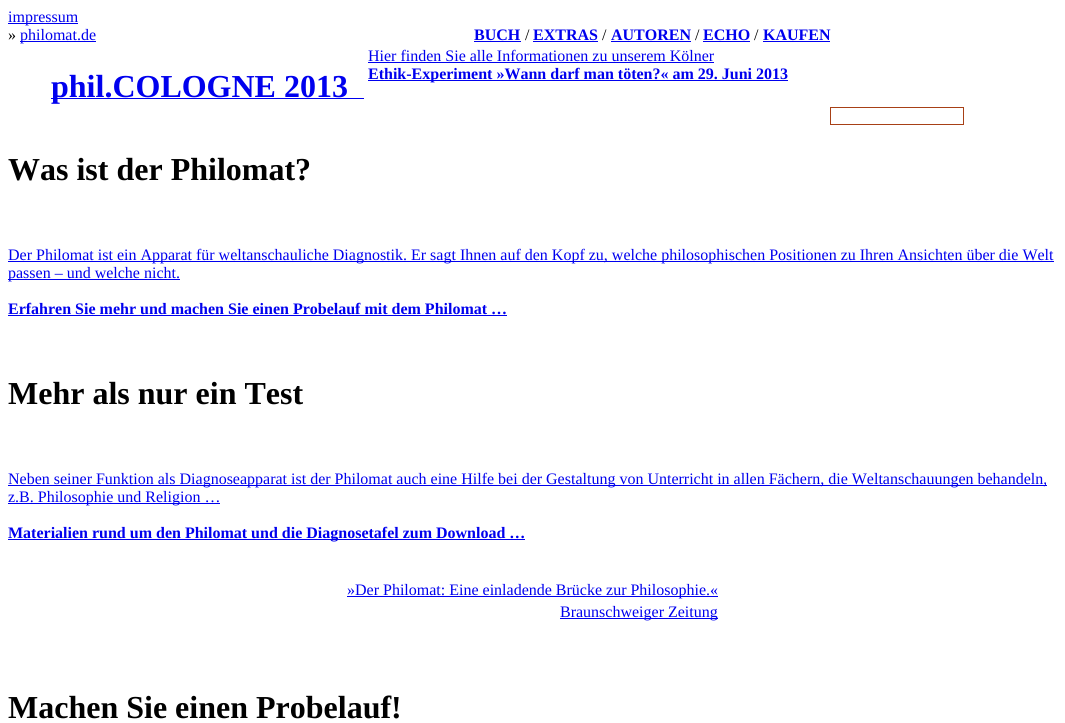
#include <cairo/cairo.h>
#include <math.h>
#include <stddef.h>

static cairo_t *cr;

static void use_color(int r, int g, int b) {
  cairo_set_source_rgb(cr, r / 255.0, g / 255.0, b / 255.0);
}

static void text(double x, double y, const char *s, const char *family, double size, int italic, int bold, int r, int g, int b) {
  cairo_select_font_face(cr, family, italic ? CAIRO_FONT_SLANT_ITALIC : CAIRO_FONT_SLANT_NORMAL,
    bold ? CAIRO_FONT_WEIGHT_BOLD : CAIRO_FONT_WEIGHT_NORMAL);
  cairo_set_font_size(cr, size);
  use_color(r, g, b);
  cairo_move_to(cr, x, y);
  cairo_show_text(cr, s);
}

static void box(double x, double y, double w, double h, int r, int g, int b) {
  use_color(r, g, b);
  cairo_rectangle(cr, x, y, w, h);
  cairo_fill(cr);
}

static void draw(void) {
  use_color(255, 255, 255);
  cairo_paint(cr);
  box(8, 23, 70, 1, 0, 0, 238);
  box(20, 41, 76, 1, 0, 0, 238);
  box(474, 41, 47, 1, 0, 0, 238);
  box(533, 41, 65, 1, 0, 0, 238);
  box(611, 41, 80, 1, 0, 0, 238);
  box(703, 41, 47, 1, 0, 0, 238);
  box(763, 41, 67, 1, 0, 0, 238);
  cairo_rectangle(cr, 830.5, 107.5, 133, 17);
  use_color(167, 64, 22);
  cairo_set_line_width(cr, 1);
  cairo_stroke(cr);
  box(368, 62, 346, 1, 0, 0, 238);
  box(368, 80, 420, 1, 0, 0, 238);
  box(51, 98, 313, 1, 0, 0, 238);
  box(8, 261, 1046, 1, 0, 0, 238);
  box(8, 279, 172, 1, 0, 0, 238);
  box(8, 315, 499, 1, 0, 0, 238);
  box(8, 485, 1039, 1, 0, 0, 238);
  box(8, 503, 212, 1, 0, 0, 238);
  box(8, 539, 517, 1, 0, 0, 238);
  box(347, 596, 371, 1, 0, 0, 238);
  box(560, 618, 158, 1, 0, 0, 238);
  text(8, 22, "impressum", "Liberation Serif", 16, 0, 0, 0, 0, 238);
  text(8, 40, "»", "Liberation Serif", 16, 0, 0, 0, 0, 0);
  text(20, 40, "philomat.de", "Liberation Serif", 16, 0, 0, 0, 0, 238);
  text(474, 40, "BUCH", "Liberation Serif", 16, 0, 1, 0, 0, 238);
  text(525, 40, "/", "Liberation Serif", 16, 0, 0, 0, 0, 0);
  text(533, 40, "EXTRAS", "Liberation Serif", 16, 0, 1, 0, 0, 238);
  text(602, 40, "/", "Liberation Serif", 16, 0, 0, 0, 0, 0);
  text(611, 40, "AUTOREN", "Liberation Serif", 16, 0, 1, 0, 0, 238);
  text(695, 40, "/", "Liberation Serif", 16, 0, 0, 0, 0, 0);
  text(703, 40, "ECHO", "Liberation Serif", 16, 0, 1, 0, 0, 238);
  text(754, 40, "/", "Liberation Serif", 16, 0, 0, 0, 0, 0);
  text(763, 40, "KAUFEN", "Liberation Serif", 16, 0, 1, 0, 0, 238);
  text(368, 61, "Hier finden Sie alle Informationen zu unserem Kölner", "Liberation Serif", 16, 0, 0, 0, 0, 238);
  text(368, 79, "Ethik-Experiment »Wann darf man töten?« am 29. Juni 2013", "Liberation Serif", 16, 0, 1, 0, 0, 238);
  text(51, 97, "phil.COLOGNE 2013", "Liberation Serif", 32, 0, 1, 0, 0, 238);
  text(8, 180, "Was ist der Philomat?", "Liberation Serif", 32, 0, 1, 0, 0, 0);
  text(8, 260, "Der Philomat ist ein Apparat für weltanschauliche Diagnostik. Er sagt Ihnen auf den Kopf zu, welche philosophischen Positionen zu Ihren Ansichten über die Welt", "Liberation Serif", 16, 0, 0, 0, 0, 238);
  text(8, 278, "passen – und welche nicht.", "Liberation Serif", 16, 0, 0, 0, 0, 238);
  text(8, 314, "Erfahren Sie mehr und machen Sie einen Probelauf mit dem Philomat …", "Liberation Serif", 16, 0, 1, 0, 0, 238);
  text(8, 404, "Mehr als nur ein Test", "Liberation Serif", 32, 0, 1, 0, 0, 0);
  text(8, 484, "Neben seiner Funktion als Diagnoseapparat ist der Philomat auch eine Hilfe bei der Gestaltung von Unterricht in allen Fächern, die Weltanschauungen behandeln,", "Liberation Serif", 16, 0, 0, 0, 0, 238);
  text(8, 502, "z.B. Philosophie und Religion …", "Liberation Serif", 16, 0, 0, 0, 0, 238);
  text(8, 538, "Materialien rund um den Philomat und die Diagnosetafel zum Download …", "Liberation Serif", 16, 0, 1, 0, 0, 238);
  text(347, 595, "»Der Philomat: Eine einladende Brücke zur Philosophie.«", "Liberation Serif", 16, 0, 0, 0, 0, 238);
  text(560, 617, "Braunschweiger Zeitung", "Liberation Serif", 16, 0, 0, 0, 0, 238);
  text(8, 718, "Machen Sie einen Probelauf!", "Liberation Serif", 32, 0, 1, 0, 0, 0);
}

int main(void) {
  cairo_surface_t *surface = cairo_image_surface_create(CAIRO_FORMAT_RGB24, 1065, 723);
  cr = cairo_create(surface);
  cairo_font_options_t *options = cairo_font_options_create();
  cairo_font_options_set_hint_metrics(options, CAIRO_HINT_METRICS_OFF);
  cairo_font_options_set_hint_style(options, CAIRO_HINT_STYLE_NONE);
  cairo_set_font_options(cr, options);
  cairo_set_miter_limit(cr, 4);
  draw();
  cairo_surface_write_to_png(surface, "out.png");
  cairo_font_options_destroy(options);
  cairo_destroy(cr);
  cairo_surface_destroy(surface);
  return 0;
}
